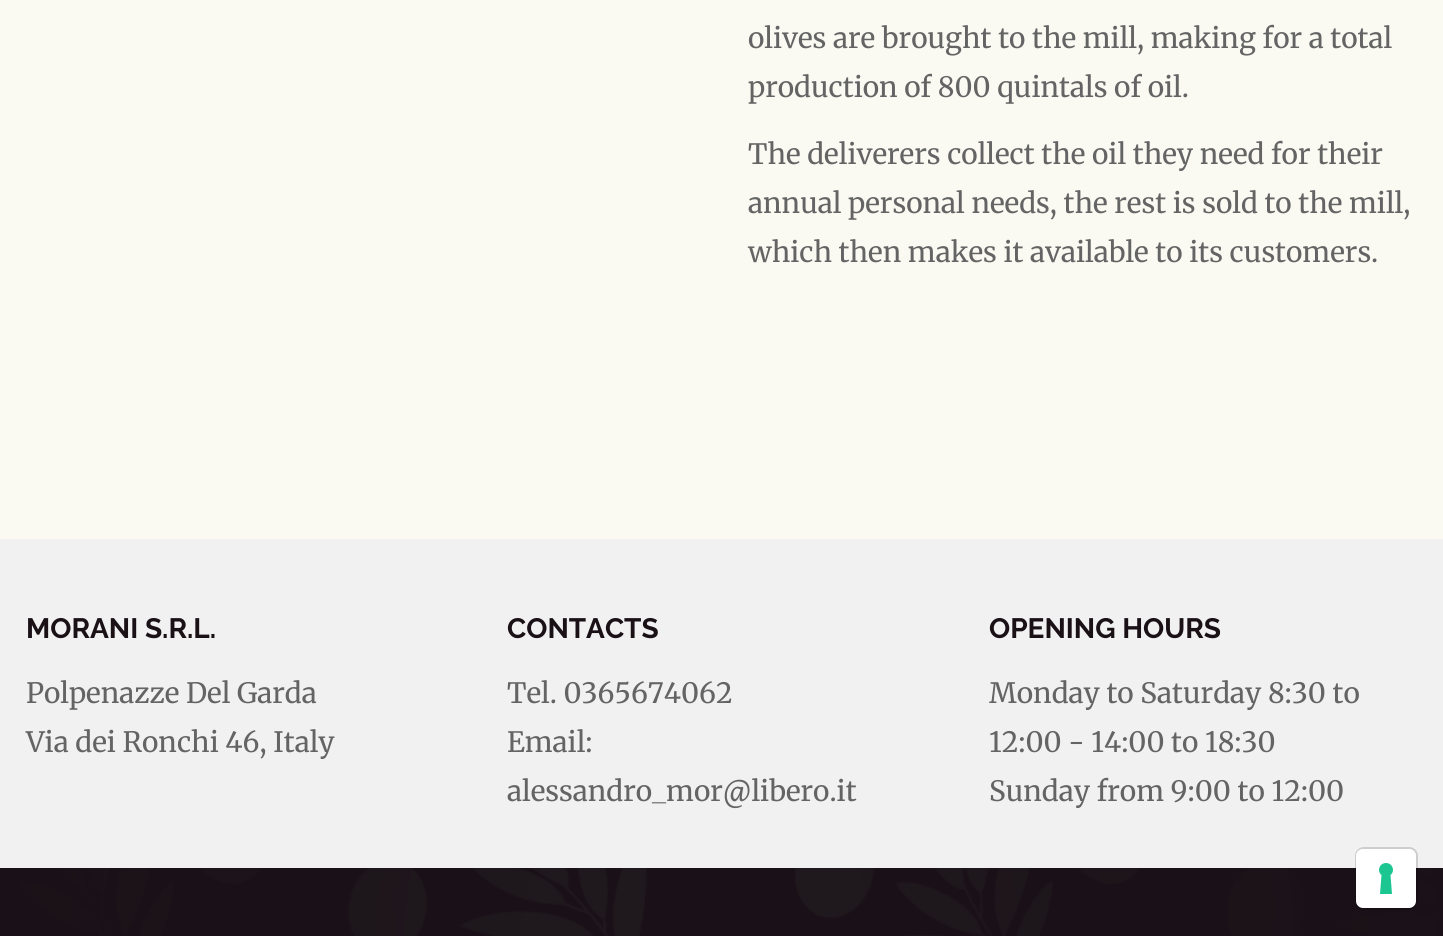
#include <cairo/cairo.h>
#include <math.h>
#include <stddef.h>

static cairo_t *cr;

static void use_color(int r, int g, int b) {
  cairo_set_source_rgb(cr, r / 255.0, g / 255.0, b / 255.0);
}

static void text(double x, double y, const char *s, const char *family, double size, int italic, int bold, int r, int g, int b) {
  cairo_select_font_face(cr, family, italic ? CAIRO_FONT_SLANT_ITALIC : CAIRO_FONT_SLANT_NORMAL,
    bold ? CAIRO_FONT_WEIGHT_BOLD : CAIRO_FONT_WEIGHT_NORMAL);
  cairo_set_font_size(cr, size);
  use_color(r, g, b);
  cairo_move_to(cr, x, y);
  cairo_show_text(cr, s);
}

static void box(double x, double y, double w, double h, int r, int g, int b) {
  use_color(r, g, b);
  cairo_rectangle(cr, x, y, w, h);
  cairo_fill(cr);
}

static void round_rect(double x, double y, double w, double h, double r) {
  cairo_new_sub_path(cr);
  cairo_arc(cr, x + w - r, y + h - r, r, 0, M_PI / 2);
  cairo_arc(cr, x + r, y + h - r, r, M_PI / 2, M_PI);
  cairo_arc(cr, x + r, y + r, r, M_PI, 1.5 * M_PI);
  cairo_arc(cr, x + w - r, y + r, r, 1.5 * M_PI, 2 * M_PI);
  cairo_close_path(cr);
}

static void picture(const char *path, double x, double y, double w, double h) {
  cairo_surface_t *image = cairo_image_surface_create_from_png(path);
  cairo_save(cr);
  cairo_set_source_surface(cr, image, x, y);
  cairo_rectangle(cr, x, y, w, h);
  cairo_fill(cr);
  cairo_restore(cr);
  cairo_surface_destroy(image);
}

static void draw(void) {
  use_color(255, 255, 255);
  cairo_paint(cr);
  box(0, 0, 1443, 539, 250, 250, 243);
  box(0, 539, 1443, 329, 241, 241, 241);
  picture("img_01.png", 0, 868, 1443, 68);
  round_rect(1356, 848, 61, 61, 8);
  cairo_set_source_rgba(cr, 0, 0, 0, 0.15);
  cairo_stroke(cr);
  use_color(255, 255, 255);
  round_rect(1356, 849, 60, 59, 7);
  cairo_fill(cr);
  use_color(28, 198, 145);
  cairo_set_fill_rule(cr, CAIRO_FILL_RULE_EVEN_ODD);
  cairo_new_path(cr);
  cairo_move_to(cr, 1386, 863);
  cairo_curve_to(cr, 1392.5, 863, 1395.5, 871, 1390.5, 875);
  cairo_line_to(cr, 1392, 894);
  cairo_line_to(cr, 1380, 894);
  cairo_line_to(cr, 1381.5, 875);
  cairo_curve_to(cr, 1376.5, 871, 1379.5, 863, 1386, 863);
  cairo_close_path(cr);
  cairo_fill(cr);
  text(748, 48, "olives are brought to the mill, making for a total", "Merriweather", 28, 0, 0, 100, 100, 100);
  text(748, 97, "production of 800 quintals of oil.", "Merriweather", 28, 0, 0, 100, 100, 100);
  text(748, 164, "The deliverers collect the oil they need for their", "Merriweather", 28, 0, 0, 100, 100, 100);
  text(748, 213, "annual personal needs, the rest is sold to the mill,", "Merriweather", 28, 0, 0, 100, 100, 100);
  text(748, 262, "which then makes it available to its customers.", "Merriweather", 28, 0, 0, 100, 100, 100);
  text(26, 638, "MORANI S.R.L.", "Raleway", 28, 0, 1, 26, 17, 23);
  text(26, 703, "Polpenazze Del Garda", "Merriweather", 28, 0, 0, 100, 100, 100);
  text(26, 752, "Via dei Ronchi 46, Italy", "Merriweather", 28, 0, 0, 100, 100, 100);
  text(507, 638, "CONTACTS", "Raleway", 28, 0, 1, 26, 17, 23);
  text(507, 703, "Tel. 0365674062", "Merriweather", 28, 0, 0, 100, 100, 100);
  text(507, 752, "Email:", "Merriweather", 28, 0, 0, 100, 100, 100);
  text(507, 801, "alessandro_mor@libero.it", "Merriweather", 28, 0, 0, 100, 100, 100);
  text(989, 638, "OPENING HOURS", "Raleway", 28, 0, 1, 26, 17, 23);
  text(989, 703, "Monday to Saturday 8:30 to", "Merriweather", 28, 0, 0, 100, 100, 100);
  text(989, 752, "12:00 - 14:00 to 18:30", "Merriweather", 28, 0, 0, 100, 100, 100);
  text(989, 801, "Sunday from 9:00 to 12:00", "Merriweather", 28, 0, 0, 100, 100, 100);
}

int main(void) {
  cairo_surface_t *surface = cairo_image_surface_create(CAIRO_FORMAT_RGB24, 1443, 936);
  cr = cairo_create(surface);
  cairo_font_options_t *options = cairo_font_options_create();
  cairo_font_options_set_hint_metrics(options, CAIRO_HINT_METRICS_OFF);
  cairo_font_options_set_hint_style(options, CAIRO_HINT_STYLE_NONE);
  cairo_set_font_options(cr, options);
  cairo_set_miter_limit(cr, 4);
  draw();
  cairo_surface_write_to_png(surface, "out.png");
  cairo_font_options_destroy(options);
  cairo_destroy(cr);
  cairo_surface_destroy(surface);
  return 0;
}
